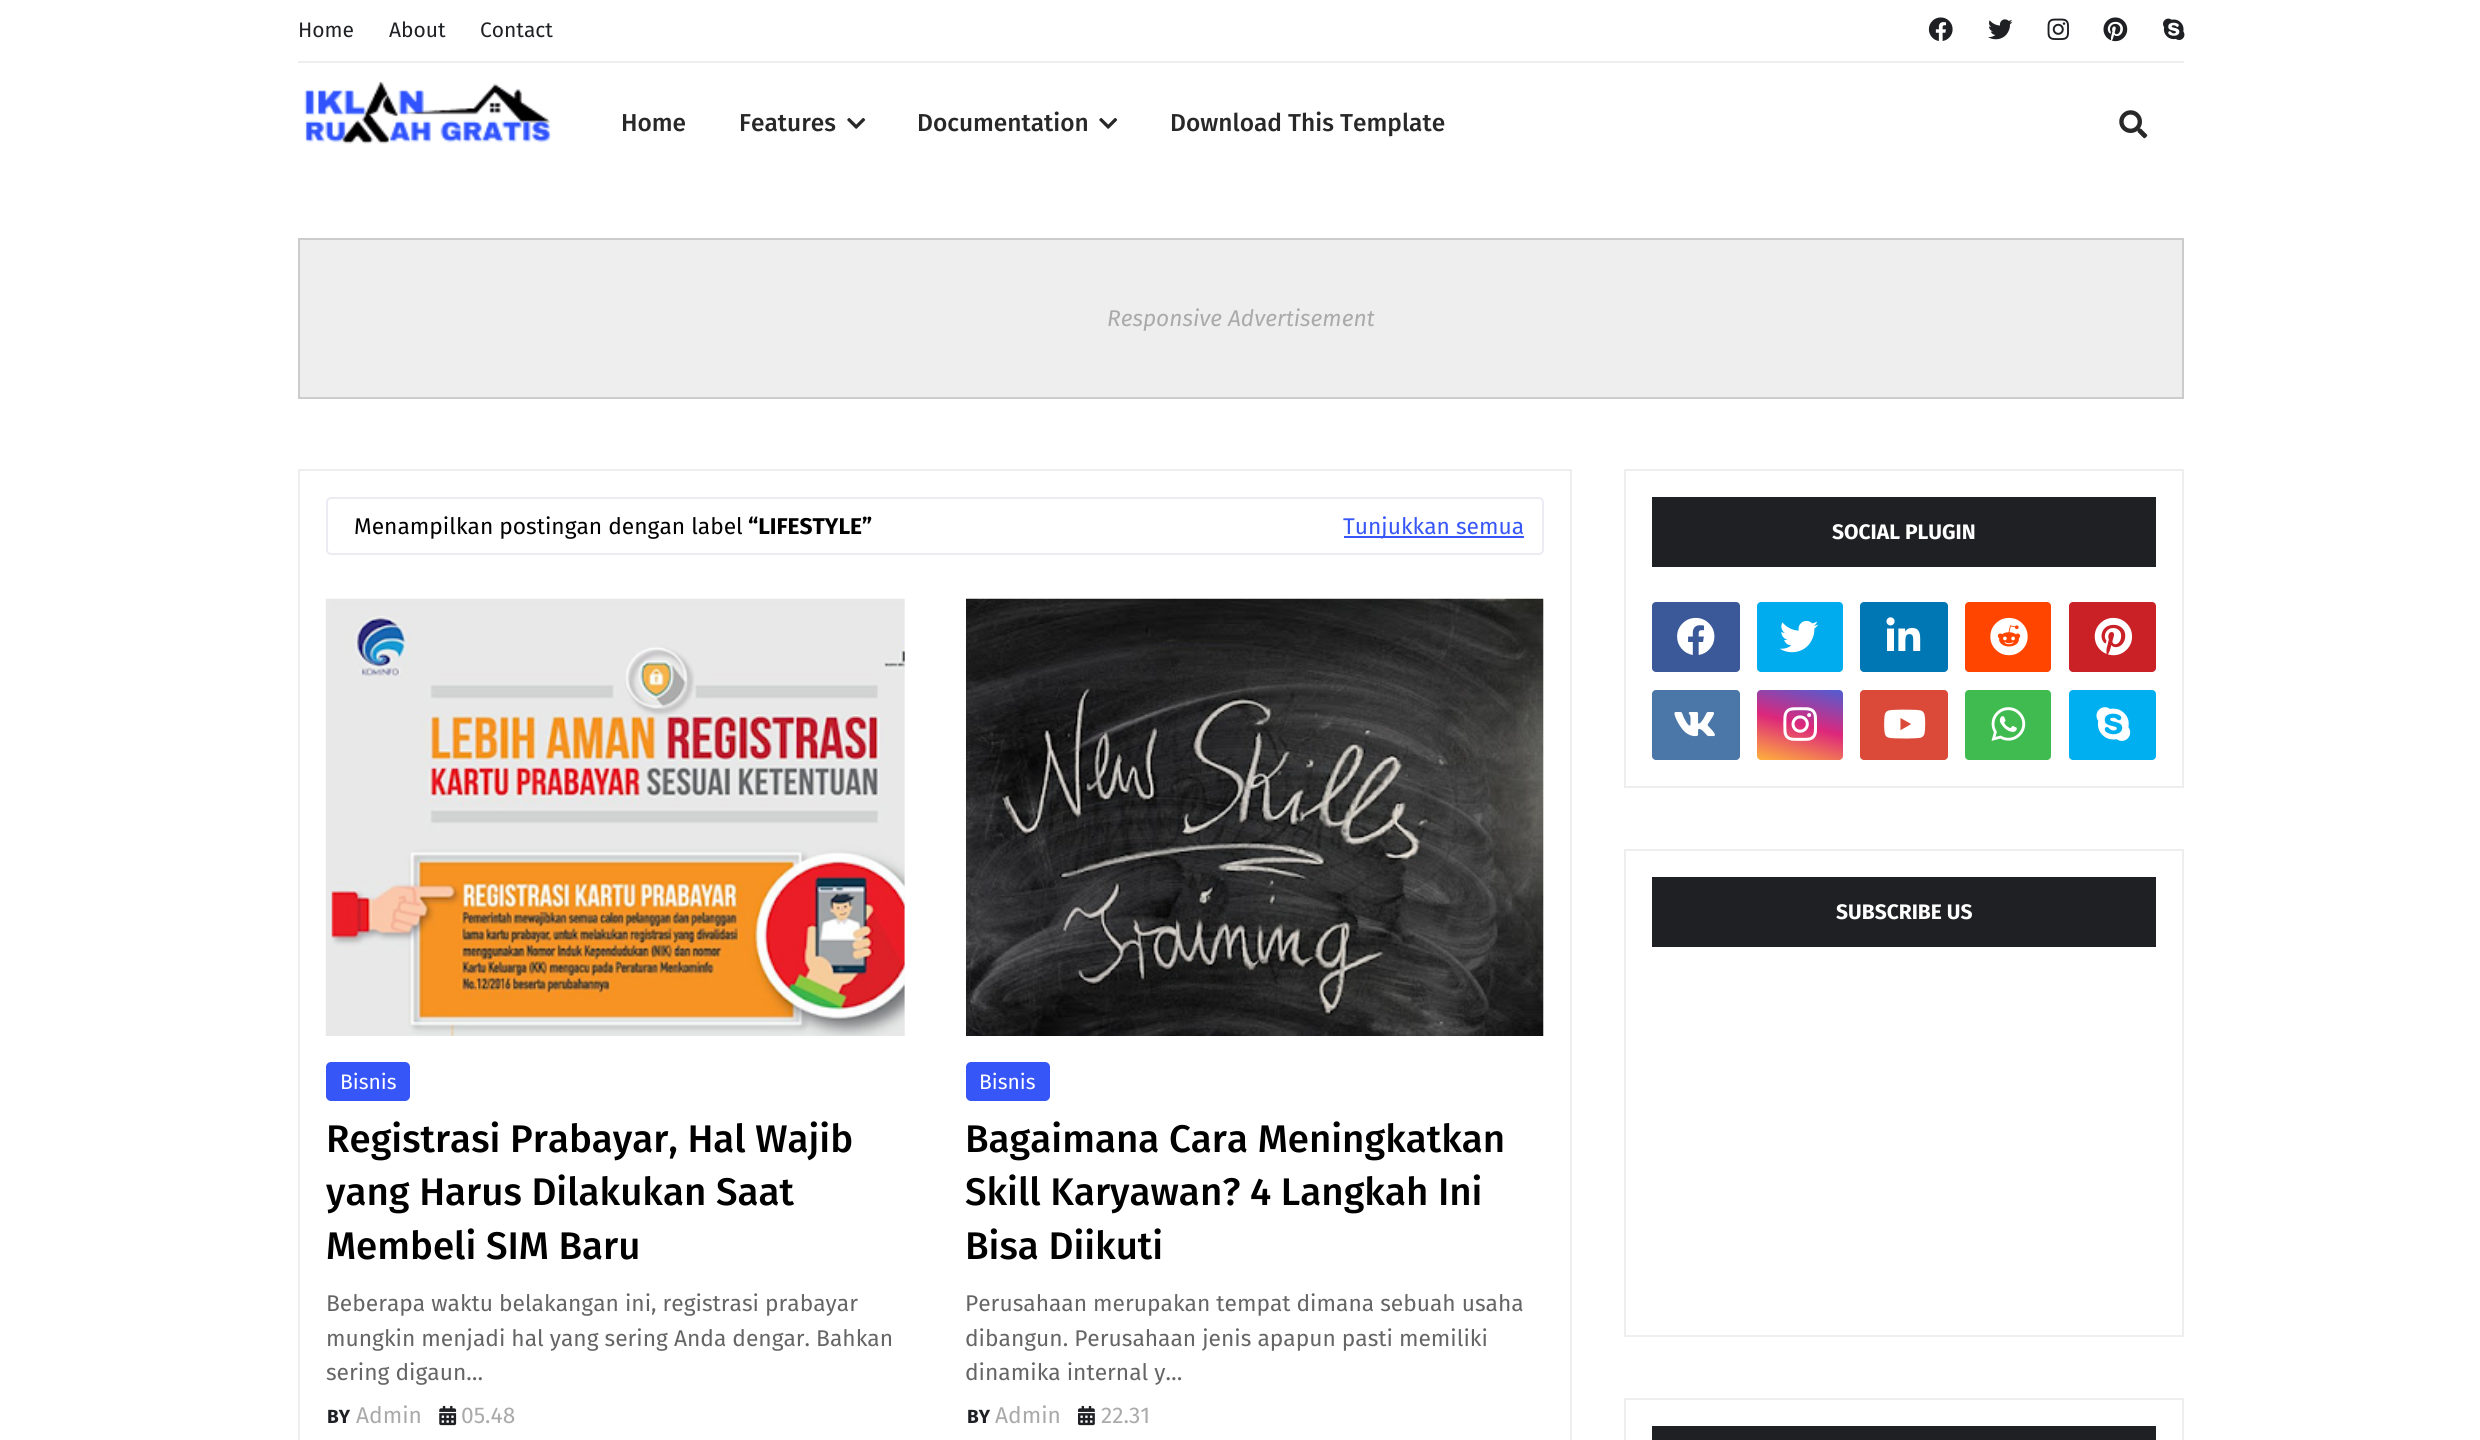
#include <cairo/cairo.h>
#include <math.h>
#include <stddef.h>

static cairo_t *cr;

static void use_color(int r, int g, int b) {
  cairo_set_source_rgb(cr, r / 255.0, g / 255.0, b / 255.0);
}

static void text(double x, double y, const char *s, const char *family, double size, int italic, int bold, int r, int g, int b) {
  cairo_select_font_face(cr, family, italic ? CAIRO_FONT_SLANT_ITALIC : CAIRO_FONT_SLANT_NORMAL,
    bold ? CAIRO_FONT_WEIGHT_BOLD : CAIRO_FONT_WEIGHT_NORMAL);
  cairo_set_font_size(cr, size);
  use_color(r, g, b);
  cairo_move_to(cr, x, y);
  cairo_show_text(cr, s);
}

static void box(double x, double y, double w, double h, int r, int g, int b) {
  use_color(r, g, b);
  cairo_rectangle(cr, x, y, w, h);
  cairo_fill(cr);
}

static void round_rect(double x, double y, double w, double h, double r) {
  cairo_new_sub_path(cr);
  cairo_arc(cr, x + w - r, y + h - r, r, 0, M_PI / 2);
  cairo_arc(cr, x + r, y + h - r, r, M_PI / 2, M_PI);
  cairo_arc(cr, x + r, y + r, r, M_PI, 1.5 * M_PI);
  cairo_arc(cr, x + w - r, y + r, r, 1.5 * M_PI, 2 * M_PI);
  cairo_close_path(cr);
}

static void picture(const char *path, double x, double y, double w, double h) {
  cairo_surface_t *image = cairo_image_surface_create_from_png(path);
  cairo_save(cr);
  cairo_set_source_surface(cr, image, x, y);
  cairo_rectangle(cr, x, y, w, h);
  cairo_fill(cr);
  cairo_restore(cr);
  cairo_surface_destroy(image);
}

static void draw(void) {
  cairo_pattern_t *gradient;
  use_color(255, 255, 255);
  cairo_paint(cr);
  box(298, 61, 1886, 2, 238, 238, 238);
  picture("img_01.png", 1928, 17, 25, 24);
  picture("img_02.png", 1988, 19, 25, 21);
  picture("img_03.png", 2047, 18, 22, 22);
  picture("img_04.png", 2103, 17, 25, 25);
  picture("img_05.png", 2163, 18, 22, 22);
  picture("img_06.png", 304, 81, 248, 63);
  picture("img_07.png", 847, 118, 19, 11);
  picture("img_07.png", 1099, 118, 19, 11);
  picture("img_08.png", 2119, 110, 29, 29);
  cairo_rectangle(cr, 299, 239, 1884, 159);
  cairo_fill_preserve(cr);
  use_color(204, 204, 204);
  cairo_stroke(cr);
  cairo_rectangle(cr, 299, 470, 1272, 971);
  use_color(238, 238, 238);
  cairo_stroke(cr);
  round_rect(327, 498, 1216, 56, 4);
  use_color(235, 235, 243);
  cairo_stroke(cr);
  box(1344, 536, 180, 2, 55, 86, 247);
  box(904, 599, 1, 437, 249, 249, 249);
  picture("img_09.png", 325, 598, 580, 438);
  use_color(55, 86, 247);
  round_rect(326, 1062, 84, 39, 5);
  cairo_fill(cr);
  picture("img_10.png", 439, 1405, 18, 21);
  box(1543, 599, 1, 437, 249, 249, 249);
  picture("img_11.png", 966, 598, 578, 438);
  use_color(55, 86, 247);
  round_rect(966, 1062, 84, 39, 5);
  cairo_fill(cr);
  picture("img_12.png", 1078, 1405, 17, 21);
  cairo_rectangle(cr, 1625, 470, 558, 317);
  use_color(238, 238, 238);
  cairo_stroke(cr);
  box(1652, 497, 504, 70, 31, 32, 36);
  use_color(59, 89, 153);
  round_rect(1652, 602, 88, 70, 4);
  cairo_fill(cr);
  picture("img_13.png", 1677, 617, 38, 38);
  use_color(0, 172, 238);
  round_rect(1757, 602, 86, 70, 4);
  cairo_fill(cr);
  picture("img_14.png", 1780, 620, 39, 33);
  use_color(0, 119, 181);
  round_rect(1860, 602, 88, 70, 4);
  cairo_fill(cr);
  picture("img_15.png", 1886, 617, 35, 34);
  use_color(255, 69, 0);
  round_rect(1965, 602, 86, 70, 4);
  cairo_fill(cr);
  picture("img_16.png", 1990, 617, 38, 39);
  use_color(202, 33, 39);
  round_rect(2069, 602, 87, 70, 4);
  cairo_fill(cr);
  picture("img_17.png", 2094, 617, 39, 39);
  use_color(74, 118, 168);
  round_rect(1652, 690, 88, 70, 4);
  cairo_fill(cr);
  picture("img_18.png", 1674, 712, 41, 25);
  gradient = cairo_pattern_create_linear(1788, 768, 1811, 681);
  cairo_pattern_add_color_stop_rgba(gradient, 0, 1, 0.694, 0.239, 1);
  cairo_pattern_add_color_stop_rgba(gradient, 0.5, 0.867, 0.153, 0.482, 1);
  cairo_pattern_add_color_stop_rgba(gradient, 1, 0.302, 0.369, 0.831, 1);
  cairo_set_source(cr, gradient);
  cairo_pattern_destroy(gradient);
  round_rect(1757, 690, 86, 70, 4);
  cairo_fill(cr);
  picture("img_19.png", 1783, 707, 34, 34);
  use_color(219, 74, 57);
  round_rect(1860, 690, 88, 70, 4);
  cairo_fill(cr);
  picture("img_20.png", 1884, 709, 42, 30);
  use_color(63, 187, 80);
  round_rect(1965, 690, 86, 70, 4);
  cairo_fill(cr);
  picture("img_21.png", 1991, 707, 35, 34);
  use_color(0, 175, 240);
  round_rect(2069, 690, 87, 70, 4);
  cairo_fill(cr);
  picture("img_22.png", 2096, 707, 35, 34);
  cairo_rectangle(cr, 1625, 850, 558, 486);
  use_color(238, 238, 238);
  cairo_stroke(cr);
  box(1652, 877, 504, 70, 31, 32, 36);
  cairo_rectangle(cr, 1625, 1399, 558, 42);
  use_color(238, 238, 238);
  cairo_stroke(cr);
  box(1652, 1426, 504, 14, 31, 32, 36);
  text(298, 37, "Home", "Fira Sans", 21, 0, 0, 31, 32, 36);
  text(389, 37, "About", "Fira Sans", 21, 0, 0, 31, 32, 36);
  text(480, 37, "Contact", "Fira Sans", 21, 0, 0, 31, 32, 36);
  text(621, 131, "Home", "Fira Sans Medium", 24.5, 0, 0, 40, 40, 40);
  text(739, 131, "Features", "Fira Sans Medium", 24.5, 0, 0, 40, 40, 40);
  text(917, 131, "Documentation", "Fira Sans Medium", 24.5, 0, 0, 40, 40, 40);
  text(1170, 131, "Download This Template", "Fira Sans Medium", 24.5, 0, 0, 40, 40, 40);
  text(1107, 326, "Responsive Advertisement", "Fira Sans", 22.75, 1, 0, 170, 170, 170);
  text(354, 534, "Menampilkan postingan dengan label", "Fira Sans", 22.75, 0, 0, 0, 0, 0);
  text(748, 534, "“LIFESTYLE”", "Fira Sans", 22.75, 0, 1, 0, 0, 0);
  text(1343, 534, "Tunjukkan semua", "Fira Sans", 22.75, 0, 0, 55, 86, 247);
  text(340, 1089, "Bisnis", "Fira Sans", 21, 0, 0, 255, 255, 255);
  text(326, 1152, "Registrasi Prabayar, Hal Wajib", "Fira Sans Medium", 38.5, 0, 0, 0, 0, 0);
  text(326, 1205, "yang Harus Dilakukan Saat", "Fira Sans Medium", 38.5, 0, 0, 0, 0, 0);
  text(326, 1259, "Membeli SIM Baru", "Fira Sans Medium", 38.5, 0, 0, 0, 0, 0);
  text(326, 1311, "Beberapa waktu belakangan ini, registrasi prabayar", "Fira Sans", 22.75, 0, 0, 101, 101, 101);
  text(326, 1346, "mungkin menjadi hal yang sering Anda dengar. Bahkan", "Fira Sans", 22.75, 0, 0, 101, 101, 101);
  text(326, 1380, "sering digaun…", "Fira Sans", 22.75, 0, 0, 101, 101, 101);
  text(327, 1423, "BY", "Fira Sans", 19, 0, 1, 31, 32, 36);
  text(356, 1423, "Admin", "Fira Sans", 22.75, 0, 0, 170, 170, 170);
  text(461, 1423, "05.48", "Fira Sans", 22.75, 0, 0, 170, 170, 170);
  text(979, 1089, "Bisnis", "Fira Sans", 21, 0, 0, 255, 255, 255);
  text(965, 1152, "Bagaimana Cara Meningkatkan", "Fira Sans Medium", 38.5, 0, 0, 0, 0, 0);
  text(965, 1205, "Skill Karyawan? 4 Langkah Ini", "Fira Sans Medium", 38.5, 0, 0, 0, 0, 0);
  text(965, 1259, "Bisa Diikuti", "Fira Sans Medium", 38.5, 0, 0, 0, 0, 0);
  text(965, 1311, "Perusahaan merupakan tempat dimana sebuah usaha", "Fira Sans", 22.75, 0, 0, 101, 101, 101);
  text(965, 1346, "dibangun. Perusahaan jenis apapun pasti memiliki", "Fira Sans", 22.75, 0, 0, 101, 101, 101);
  text(965, 1380, "dinamika internal y…", "Fira Sans", 22.75, 0, 0, 101, 101, 101);
  text(967, 1423, "BY", "Fira Sans", 19, 0, 1, 31, 32, 36);
  text(995, 1423, "Admin", "Fira Sans", 22.75, 0, 0, 170, 170, 170);
  text(1101, 1423, "22.31", "Fira Sans", 22.75, 0, 0, 170, 170, 170);
  text(1832, 539, "SOCIAL PLUGIN", "Fira Sans", 21, 0, 1, 255, 255, 255);
  text(1836, 919, "SUBSCRIBE US", "Fira Sans", 21, 0, 1, 255, 255, 255);
}

int main(void) {
  cairo_surface_t *surface = cairo_image_surface_create(CAIRO_FORMAT_RGB24, 2480, 1440);
  cr = cairo_create(surface);
  cairo_font_options_t *options = cairo_font_options_create();
  cairo_font_options_set_hint_metrics(options, CAIRO_HINT_METRICS_OFF);
  cairo_font_options_set_hint_style(options, CAIRO_HINT_STYLE_NONE);
  cairo_set_font_options(cr, options);
  cairo_set_miter_limit(cr, 4);
  draw();
  cairo_surface_write_to_png(surface, "out.png");
  cairo_font_options_destroy(options);
  cairo_destroy(cr);
  cairo_surface_destroy(surface);
  return 0;
}
